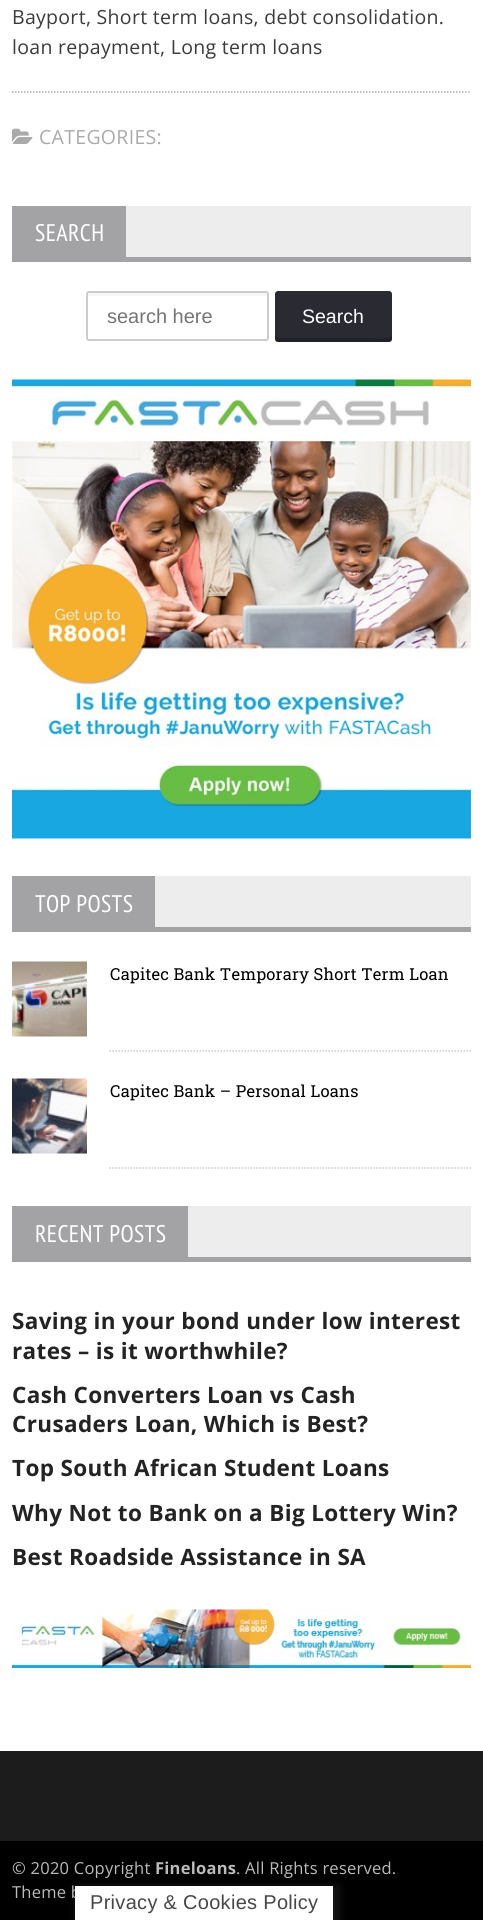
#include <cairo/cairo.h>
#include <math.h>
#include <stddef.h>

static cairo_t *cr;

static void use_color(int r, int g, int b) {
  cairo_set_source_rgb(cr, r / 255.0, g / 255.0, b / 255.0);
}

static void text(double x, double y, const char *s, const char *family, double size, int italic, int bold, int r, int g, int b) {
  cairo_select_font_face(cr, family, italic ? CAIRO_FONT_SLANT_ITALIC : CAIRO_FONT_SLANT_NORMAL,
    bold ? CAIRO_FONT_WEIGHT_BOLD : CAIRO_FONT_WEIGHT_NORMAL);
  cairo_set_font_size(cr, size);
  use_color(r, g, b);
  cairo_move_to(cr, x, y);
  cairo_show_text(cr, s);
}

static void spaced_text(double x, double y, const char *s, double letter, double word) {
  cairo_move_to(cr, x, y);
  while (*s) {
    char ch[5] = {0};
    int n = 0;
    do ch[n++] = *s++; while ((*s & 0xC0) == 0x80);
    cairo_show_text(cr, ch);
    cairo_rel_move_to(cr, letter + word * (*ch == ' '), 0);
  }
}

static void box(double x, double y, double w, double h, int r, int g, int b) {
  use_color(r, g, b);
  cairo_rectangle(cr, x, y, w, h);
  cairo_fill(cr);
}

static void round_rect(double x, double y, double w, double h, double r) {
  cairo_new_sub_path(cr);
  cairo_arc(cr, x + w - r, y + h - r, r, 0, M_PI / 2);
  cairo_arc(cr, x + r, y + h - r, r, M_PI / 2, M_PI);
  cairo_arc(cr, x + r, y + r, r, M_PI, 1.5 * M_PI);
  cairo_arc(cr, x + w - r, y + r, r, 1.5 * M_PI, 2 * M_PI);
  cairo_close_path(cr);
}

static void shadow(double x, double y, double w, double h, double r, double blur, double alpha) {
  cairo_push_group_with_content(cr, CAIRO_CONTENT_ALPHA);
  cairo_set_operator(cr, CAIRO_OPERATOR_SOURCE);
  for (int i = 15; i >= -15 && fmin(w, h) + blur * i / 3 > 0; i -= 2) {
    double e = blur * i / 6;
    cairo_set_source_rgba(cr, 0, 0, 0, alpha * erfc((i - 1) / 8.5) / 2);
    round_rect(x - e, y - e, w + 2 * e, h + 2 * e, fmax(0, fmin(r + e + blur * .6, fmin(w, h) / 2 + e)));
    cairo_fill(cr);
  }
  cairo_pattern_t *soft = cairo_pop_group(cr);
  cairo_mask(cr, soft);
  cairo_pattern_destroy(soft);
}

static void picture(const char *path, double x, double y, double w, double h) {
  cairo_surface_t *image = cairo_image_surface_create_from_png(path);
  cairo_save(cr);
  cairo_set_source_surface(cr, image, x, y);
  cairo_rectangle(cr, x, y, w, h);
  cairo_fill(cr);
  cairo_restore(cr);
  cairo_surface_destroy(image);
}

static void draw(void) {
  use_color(255, 255, 255);
  cairo_paint(cr);
  cairo_new_path(cr);
  cairo_move_to(cr, 12, 92);
  cairo_line_to(cr, 471, 92);
  use_color(170, 170, 170);
  cairo_set_line_width(cr, 1.5);
  cairo_set_dash(cr, (double[]){1.5, 1.5}, 2, 0);
  cairo_stroke(cr);
  picture("img_01.png", 12, 128, 21, 16);
  box(126, 206, 345, 51, 237, 237, 237);
  box(12, 206, 114, 51, 163, 163, 166);
  box(12, 257, 459, 5, 163, 163, 166);
  use_color(247, 247, 247);
  cairo_new_path(cr);
  cairo_move_to(cr, 88, 296);
  cairo_line_to(cr, 266, 296);
  cairo_curve_to(cr, 266, 296, 267, 296, 267, 297);
  cairo_curve_to(cr, 267, 296, 268, 294, 266, 293);
  cairo_line_to(cr, 88, 293);
  cairo_curve_to(cr, 86, 293, 87, 296, 87, 297);
  cairo_close_path(cr);
  cairo_fill(cr);
  round_rect(87, 292, 181, 48, 2);
  use_color(204, 204, 204);
  cairo_set_line_width(cr, 2);
  cairo_set_dash(cr, NULL, 0, 0);
  cairo_stroke(cr);
  use_color(41, 42, 50);
  round_rect(275, 291, 117, 51, 3);
  cairo_fill(cr);
  cairo_set_source_rgba(cr, 0, 0, 0, 0.2);
  cairo_new_path(cr);
  cairo_move_to(cr, 275, 336);
  cairo_line_to(cr, 275, 339);
  cairo_curve_to(cr, 275, 341, 276, 342, 278, 342);
  cairo_line_to(cr, 389, 342);
  cairo_curve_to(cr, 391, 342, 392, 341, 392, 339);
  cairo_line_to(cr, 392, 334);
  cairo_line_to(cr, 391, 336);
  cairo_curve_to(cr, 388, 341, 370, 338, 370, 338);
  cairo_line_to(cr, 278, 338);
  cairo_close_path(cr);
  cairo_fill(cr);
  picture("img_02.png", 12, 379, 459, 460);
  box(155, 876, 316, 51, 237, 237, 237);
  box(12, 876, 143, 51, 163, 163, 166);
  box(12, 927, 459, 5, 163, 163, 166);
  picture("img_03.png", 12, 961, 75, 76);
  cairo_new_path(cr);
  cairo_move_to(cr, 109.5, 1051);
  cairo_line_to(cr, 471, 1051);
  use_color(204, 204, 204);
  cairo_set_line_width(cr, 1.5);
  cairo_set_dash(cr, (double[]){1.5, 1.5}, 2, 0);
  cairo_stroke(cr);
  picture("img_04.png", 12, 1078, 75, 76);
  cairo_new_path(cr);
  cairo_move_to(cr, 109.5, 1168);
  cairo_line_to(cr, 471, 1168);
  cairo_stroke(cr);
  box(188, 1206, 283, 51, 237, 237, 237);
  box(12, 1206, 176, 51, 163, 163, 166);
  box(12, 1257, 459, 5, 163, 163, 166);
  picture("img_05.png", 12, 1609, 459, 59);
  box(0, 1751, 483, 90, 28, 28, 28);
  box(0, 1841, 483, 79, 0, 0, 0);
  use_color(22, 22, 22);
  shadow(75, 1886, 264, 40, 0, 4, 1);
  cairo_select_font_face(cr, "Open Sans", CAIRO_FONT_SLANT_NORMAL, CAIRO_FONT_WEIGHT_NORMAL);
  cairo_set_font_size(cr, 19.5);
  use_color(59, 59, 59);
  spaced_text(12, 24, "Bayport, Short term loans, debt consolidation.", 0.3, 0);
  spaced_text(12, 54, "loan repayment, Long term loans", 0.3, 0);
  use_color(170, 170, 170);
  spaced_text(39, 144, "CATEGORIES:", 0.3, 0);
  cairo_select_font_face(cr, "PT Sans Narrow", CAIRO_FONT_SLANT_NORMAL, CAIRO_FONT_WEIGHT_NORMAL);
  cairo_set_font_size(cr, 24);
  use_color(255, 255, 255);
  spaced_text(35, 241, "SEARCH", 0.35, 0);
  text(107, 323, "search here", "Liberation Sans", 20, 0, 0, 117, 117, 117);
  text(302, 323, "Search", "Liberation Sans", 19.5, 0, 0, 255, 255, 255);
  cairo_select_font_face(cr, "PT Sans Narrow", CAIRO_FONT_SLANT_NORMAL, CAIRO_FONT_WEIGHT_NORMAL);
  cairo_set_font_size(cr, 24);
  spaced_text(35, 912, "TOP POSTS", 0.35, 0);
  cairo_select_font_face(cr, "Roboto Slab", CAIRO_FONT_SLANT_NORMAL, CAIRO_FONT_WEIGHT_NORMAL);
  cairo_set_font_size(cr, 16.5);
  use_color(0, 0, 0);
  spaced_text(110, 980, "Capitec Bank Temporary Short Term Loan", 0.25, 0);
  spaced_text(110, 1097, "Capitec Bank – Personal Loans", 0.25, 0);
  cairo_select_font_face(cr, "PT Sans Narrow", CAIRO_FONT_SLANT_NORMAL, CAIRO_FONT_WEIGHT_NORMAL);
  cairo_set_font_size(cr, 24);
  use_color(255, 255, 255);
  spaced_text(35, 1242, "RECENT POSTS", 0.35, 0);
  cairo_select_font_face(cr, "Open Sans", CAIRO_FONT_SLANT_NORMAL, CAIRO_FONT_WEIGHT_BOLD);
  cairo_set_font_size(cr, 22.5);
  use_color(35, 35, 35);
  spaced_text(12, 1329, "Saving in your bond under low interest", 0.35, 0);
  spaced_text(12, 1359, "rates – is it worthwhile?", 0.35, 0);
  spaced_text(12, 1403, "Cash Converters Loan vs Cash", 0.35, 0);
  spaced_text(12, 1432, "Crusaders Loan, Which is Best?", 0.35, 0);
  spaced_text(12, 1476, "Top South African Student Loans", 0.35, 0);
  spaced_text(12, 1521, "Why Not to Bank on a Big Lottery Win?", 0.35, 0);
  spaced_text(12, 1565, "Best Roadside Assistance in SA", 0.35, 0);
  cairo_select_font_face(cr, "Open Sans", CAIRO_FONT_SLANT_NORMAL, CAIRO_FONT_WEIGHT_NORMAL);
  cairo_set_font_size(cr, 16.5);
  use_color(187, 187, 187);
  spaced_text(12, 1874, "© 2020 Copyright", 0.25, 0);
  cairo_select_font_face(cr, "Open Sans", CAIRO_FONT_SLANT_NORMAL, CAIRO_FONT_WEIGHT_BOLD);
  spaced_text(155, 1874, "Fineloans", 0.25, 0);
  cairo_select_font_face(cr, "Open Sans", CAIRO_FONT_SLANT_NORMAL, CAIRO_FONT_WEIGHT_NORMAL);
  spaced_text(236, 1874, ". All Rights reserved.", 0.25, 0);
  spaced_text(12, 1898, "Theme b", 0.25, 0);
  box(75, 1886, 258, 34, 255, 255, 255);
  cairo_select_font_face(cr, "Liberation Sans", CAIRO_FONT_SLANT_NORMAL, CAIRO_FONT_WEIGHT_NORMAL);
  cairo_set_font_size(cr, 20);
  use_color(71, 71, 71);
  spaced_text(90, 1909, "Privacy & Cookies Policy", 0.3, 0);
}

int main(void) {
  cairo_surface_t *surface = cairo_image_surface_create(CAIRO_FORMAT_RGB24, 483, 1920);
  cr = cairo_create(surface);
  cairo_font_options_t *options = cairo_font_options_create();
  cairo_font_options_set_hint_metrics(options, CAIRO_HINT_METRICS_OFF);
  cairo_font_options_set_hint_style(options, CAIRO_HINT_STYLE_NONE);
  cairo_set_font_options(cr, options);
  cairo_set_miter_limit(cr, 4);
  draw();
  cairo_surface_write_to_png(surface, "out.png");
  cairo_font_options_destroy(options);
  cairo_destroy(cr);
  cairo_surface_destroy(surface);
  return 0;
}
